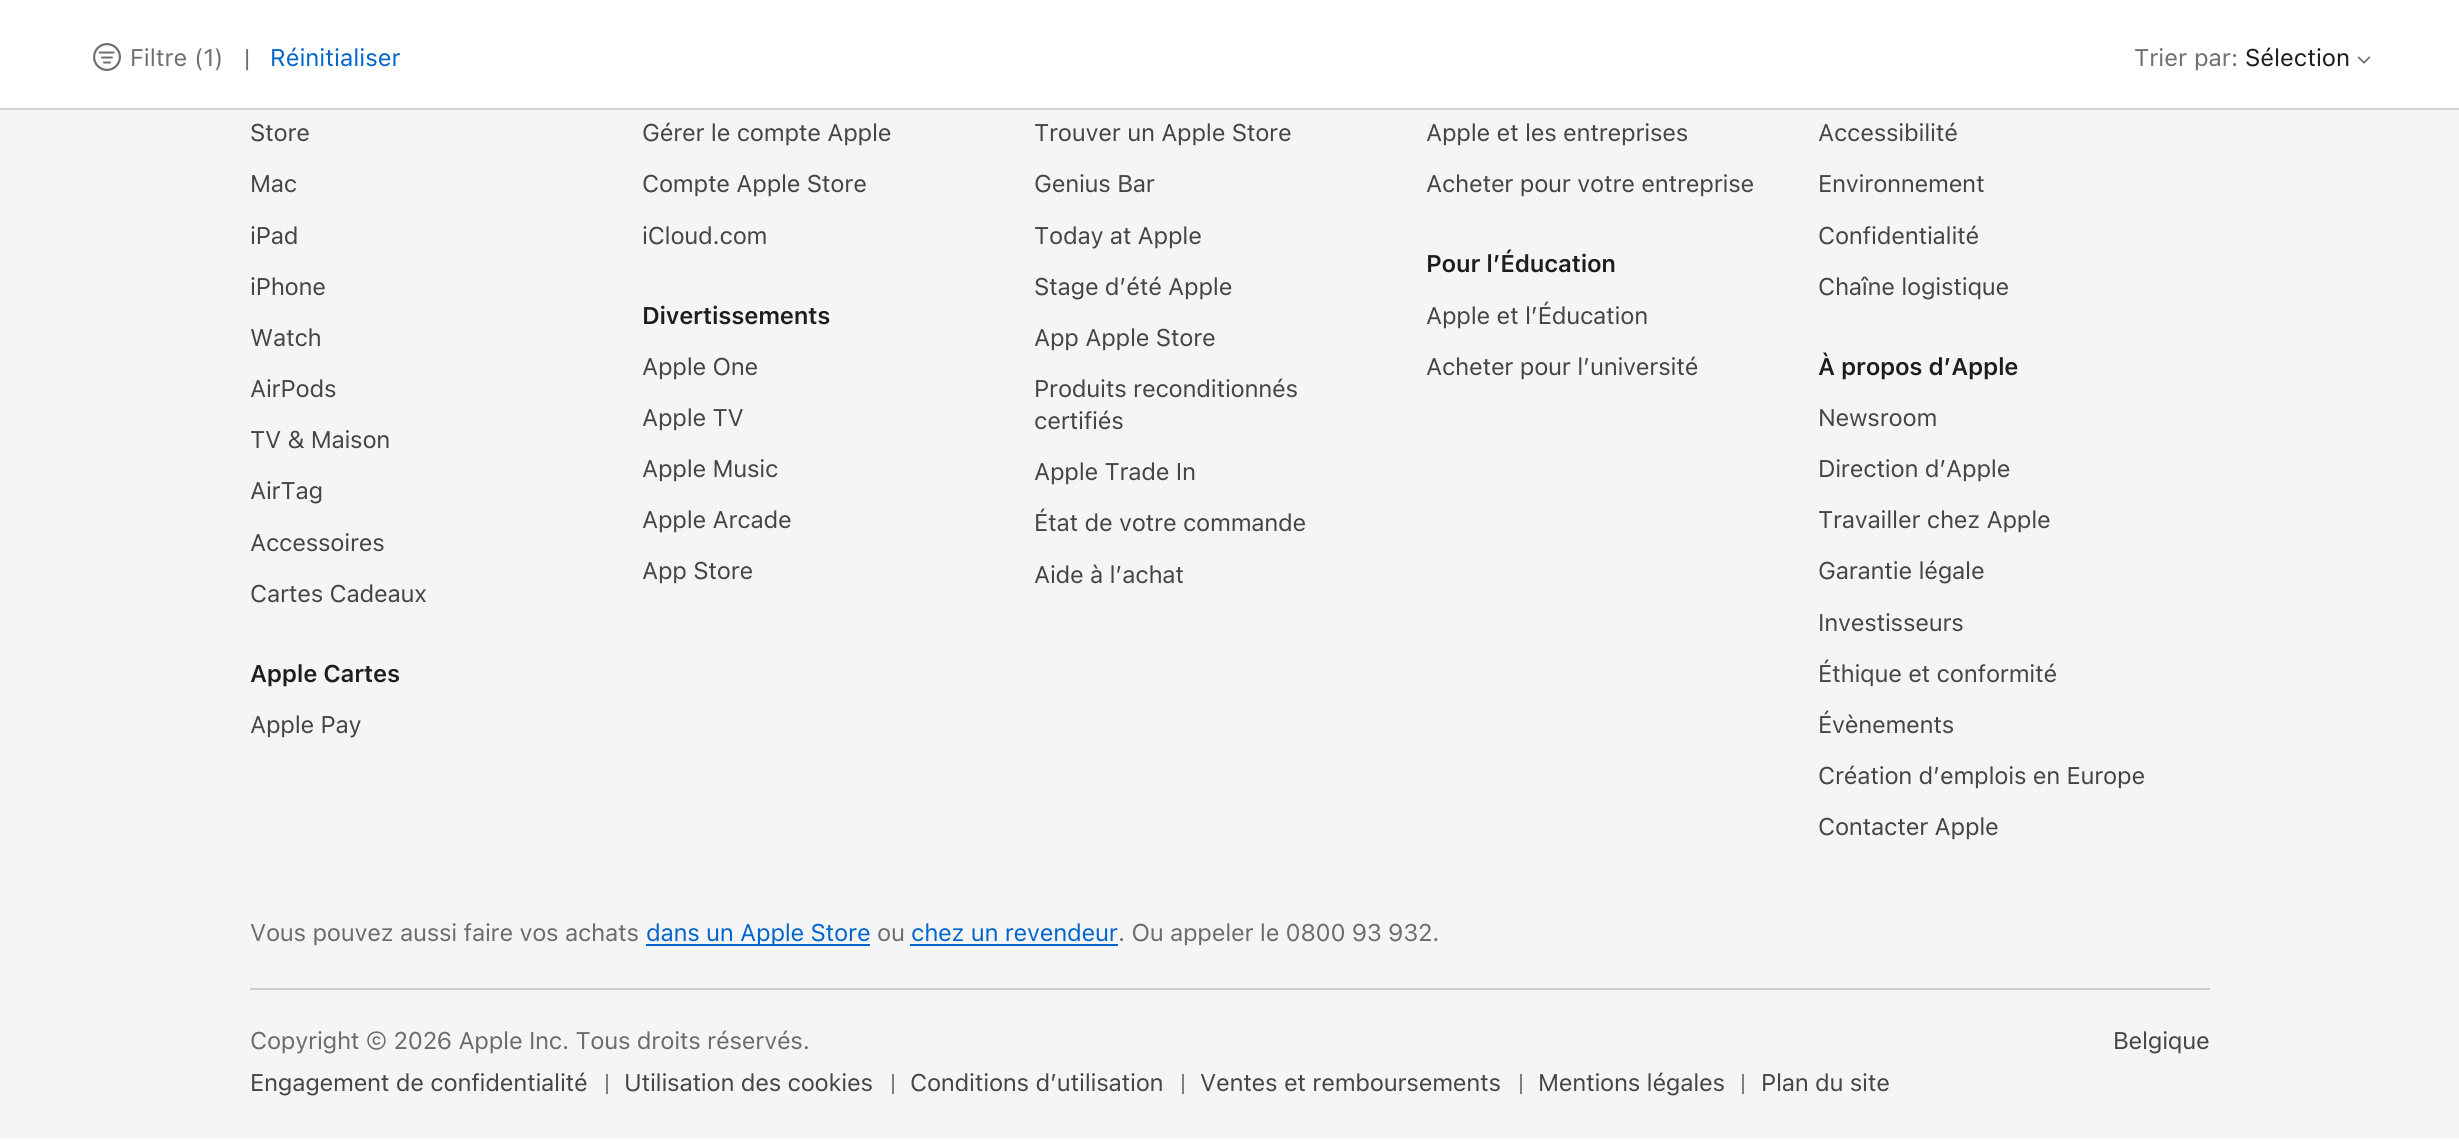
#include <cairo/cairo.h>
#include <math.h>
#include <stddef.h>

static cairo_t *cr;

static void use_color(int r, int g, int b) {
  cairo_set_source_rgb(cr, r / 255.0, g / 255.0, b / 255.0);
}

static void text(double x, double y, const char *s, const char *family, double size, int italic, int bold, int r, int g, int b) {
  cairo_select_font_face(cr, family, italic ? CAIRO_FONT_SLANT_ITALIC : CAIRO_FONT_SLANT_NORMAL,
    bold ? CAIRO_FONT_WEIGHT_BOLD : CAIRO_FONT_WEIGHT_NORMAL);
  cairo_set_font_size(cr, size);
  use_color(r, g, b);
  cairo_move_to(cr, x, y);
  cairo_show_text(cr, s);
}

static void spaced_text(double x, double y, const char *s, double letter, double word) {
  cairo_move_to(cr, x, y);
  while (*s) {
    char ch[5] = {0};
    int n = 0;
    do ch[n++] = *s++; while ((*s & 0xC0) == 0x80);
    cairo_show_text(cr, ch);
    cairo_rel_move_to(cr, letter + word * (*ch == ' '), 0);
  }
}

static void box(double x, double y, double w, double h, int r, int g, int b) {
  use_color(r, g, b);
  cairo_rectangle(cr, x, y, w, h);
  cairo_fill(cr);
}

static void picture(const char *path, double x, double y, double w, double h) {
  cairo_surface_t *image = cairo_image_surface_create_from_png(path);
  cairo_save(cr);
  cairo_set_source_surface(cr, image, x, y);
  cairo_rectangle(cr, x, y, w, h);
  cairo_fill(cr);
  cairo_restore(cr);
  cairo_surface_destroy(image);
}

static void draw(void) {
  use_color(255, 255, 255);
  cairo_paint(cr);
  picture("img_01.png", 93, 43, 28, 28);
  picture("img_02.png", 2357, 56, 14, 8);
  box(0, 108, 2459, 2, 210, 210, 215);
  box(0, 110, 2459, 1028, 245, 245, 247);
  box(250, 988, 1960, 2, 206, 206, 207);
  box(646, 944, 224, 2, 0, 102, 204);
  box(910, 944, 208, 2, 0, 102, 204);
  box(606, 1074, 2, 20, 127, 127, 128);
  box(892, 1074, 2, 20, 127, 127, 128);
  box(1182, 1074, 2, 20, 127, 127, 128);
  box(1520, 1074, 2, 20, 127, 127, 128);
  box(1742, 1074, 2, 20, 127, 127, 128);
  text(130, 66, "Filtre (1)", "SF Pro Text", 24, 0, 0, 110, 110, 115);
  spaced_text(244, 66, "|", -0.25, 0);
  text(270, 66, "Réinitialiser", "SF Pro Text", 24, 0, 0, 0, 102, 204);
  text(2134, 66, "Trier par:", "SF Pro Text", 24, 0, 0, 110, 110, 115);
  text(2245, 66, "Sélection", "SF Pro Text", 24, 0, 0, 29, 29, 30);
  use_color(69, 69, 69);
  spaced_text(250, 141, "Store", -0.25, 0);
  spaced_text(250, 192, "Mac", -0.25, 0);
  spaced_text(250, 244, "iPad", -0.25, 0);
  spaced_text(250, 295, "iPhone", -0.25, 0);
  spaced_text(250, 346, "Watch", -0.25, 0);
  spaced_text(250, 397, "AirPods", -0.25, 0);
  spaced_text(250, 448, "TV & Maison", -0.25, 0);
  spaced_text(250, 499, "AirTag", -0.25, 0);
  spaced_text(250, 551, "Accessoires", -0.25, 0);
  spaced_text(250, 602, "Cartes Cadeaux", -0.25, 0);
  cairo_select_font_face(cr, "SF Pro Text SemiBold", CAIRO_FONT_SLANT_NORMAL, CAIRO_FONT_WEIGHT_NORMAL);
  use_color(29, 29, 30);
  spaced_text(250, 682, "Apple Cartes", -0.25, 0);
  cairo_select_font_face(cr, "SF Pro Text", CAIRO_FONT_SLANT_NORMAL, CAIRO_FONT_WEIGHT_NORMAL);
  use_color(69, 69, 69);
  spaced_text(250, 733, "Apple Pay", -0.25, 0);
  spaced_text(642, 141, "Gérer le compte Apple", -0.25, 0);
  spaced_text(642, 192, "Compte Apple Store", -0.25, 0);
  spaced_text(642, 244, "iCloud.com", -0.25, 0);
  cairo_select_font_face(cr, "SF Pro Text SemiBold", CAIRO_FONT_SLANT_NORMAL, CAIRO_FONT_WEIGHT_NORMAL);
  use_color(29, 29, 30);
  spaced_text(642, 324, "Divertissements", -0.25, 0);
  cairo_select_font_face(cr, "SF Pro Text", CAIRO_FONT_SLANT_NORMAL, CAIRO_FONT_WEIGHT_NORMAL);
  use_color(69, 69, 69);
  spaced_text(642, 375, "Apple One", -0.25, 0);
  spaced_text(642, 426, "Apple TV", -0.25, 0);
  spaced_text(642, 477, "Apple Music", -0.25, 0);
  spaced_text(642, 528, "Apple Arcade", -0.25, 0);
  spaced_text(642, 579, "App Store", -0.25, 0);
  spaced_text(1034, 141, "Trouver un Apple Store", -0.25, 0);
  spaced_text(1034, 192, "Genius Bar", -0.25, 0);
  spaced_text(1034, 244, "Today at Apple", -0.25, 0);
  spaced_text(1034, 295, "Stage d’été Apple", -0.25, 0);
  spaced_text(1034, 346, "App Apple Store", -0.25, 0);
  spaced_text(1034, 397, "Produits reconditionnés", -0.25, 0);
  spaced_text(1034, 429, "certifiés", -0.25, 0);
  spaced_text(1034, 480, "Apple Trade In", -0.25, 0);
  spaced_text(1034, 531, "État de votre commande", -0.25, 0);
  spaced_text(1034, 583, "Aide à l’achat", -0.25, 0);
  spaced_text(1426, 141, "Apple et les entreprises", -0.25, 0);
  spaced_text(1426, 192, "Acheter pour votre entreprise", -0.25, 0);
  cairo_select_font_face(cr, "SF Pro Text SemiBold", CAIRO_FONT_SLANT_NORMAL, CAIRO_FONT_WEIGHT_NORMAL);
  use_color(29, 29, 30);
  spaced_text(1426, 272, "Pour l’Éducation", -0.25, 0);
  cairo_select_font_face(cr, "SF Pro Text", CAIRO_FONT_SLANT_NORMAL, CAIRO_FONT_WEIGHT_NORMAL);
  use_color(69, 69, 69);
  spaced_text(1426, 324, "Apple et l’Éducation", -0.25, 0);
  spaced_text(1426, 375, "Acheter pour l’université", -0.25, 0);
  spaced_text(1818, 141, "Accessibilité", -0.25, 0);
  spaced_text(1818, 192, "Environnement", -0.25, 0);
  spaced_text(1818, 244, "Confidentialité", -0.25, 0);
  spaced_text(1818, 295, "Chaîne logistique", -0.25, 0);
  cairo_select_font_face(cr, "SF Pro Text SemiBold", CAIRO_FONT_SLANT_NORMAL, CAIRO_FONT_WEIGHT_NORMAL);
  use_color(29, 29, 30);
  spaced_text(1818, 375, "À propos d’Apple", -0.25, 0);
  cairo_select_font_face(cr, "SF Pro Text", CAIRO_FONT_SLANT_NORMAL, CAIRO_FONT_WEIGHT_NORMAL);
  use_color(69, 69, 69);
  spaced_text(1818, 426, "Newsroom", -0.25, 0);
  spaced_text(1818, 477, "Direction d’Apple", -0.25, 0);
  spaced_text(1818, 528, "Travailler chez Apple", -0.25, 0);
  spaced_text(1818, 579, "Garantie légale", -0.25, 0);
  spaced_text(1818, 631, "Investisseurs", -0.25, 0);
  spaced_text(1818, 682, "Éthique et conformité", -0.25, 0);
  spaced_text(1818, 733, "Évènements", -0.25, 0);
  spaced_text(1818, 784, "Création d’emplois en Europe", -0.25, 0);
  spaced_text(1818, 835, "Contacter Apple", -0.25, 0);
  use_color(108, 108, 109);
  spaced_text(250, 941, "Vous pouvez aussi faire vos achats", -0.25, 0);
  use_color(0, 102, 204);
  spaced_text(646, 941, "dans un Apple Store", -0.25, 0);
  use_color(108, 108, 109);
  spaced_text(877, 941, "ou", -0.25, 0);
  use_color(0, 102, 204);
  spaced_text(911, 941, "chez un revendeur", -0.25, 0);
  use_color(108, 108, 109);
  spaced_text(1118, 941, ". Ou appeler le 0800 93 932.", -0.25, 0);
  spaced_text(250, 1049, "Copyright © 2026 Apple Inc. Tous droits réservés.", -0.25, 0);
  use_color(69, 69, 69);
  spaced_text(250, 1091, "Engagement de confidentialité", -0.25, 0);
  spaced_text(624, 1091, "Utilisation des cookies", -0.25, 0);
  spaced_text(910, 1091, "Conditions d’utilisation", -0.25, 0);
  spaced_text(1200, 1091, "Ventes et remboursements", -0.25, 0);
  spaced_text(1538, 1091, "Mentions légales", -0.25, 0);
  spaced_text(1761, 1091, "Plan du site", -0.25, 0);
  spaced_text(2113, 1049, "Belgique", -0.25, 0);
}

int main(void) {
  cairo_surface_t *surface = cairo_image_surface_create(CAIRO_FORMAT_RGB24, 2459, 1140);
  cr = cairo_create(surface);
  cairo_font_options_t *options = cairo_font_options_create();
  cairo_font_options_set_hint_metrics(options, CAIRO_HINT_METRICS_OFF);
  cairo_font_options_set_hint_style(options, CAIRO_HINT_STYLE_NONE);
  cairo_set_font_options(cr, options);
  cairo_set_miter_limit(cr, 4);
  draw();
  cairo_surface_write_to_png(surface, "out.png");
  cairo_font_options_destroy(options);
  cairo_destroy(cr);
  cairo_surface_destroy(surface);
  return 0;
}
